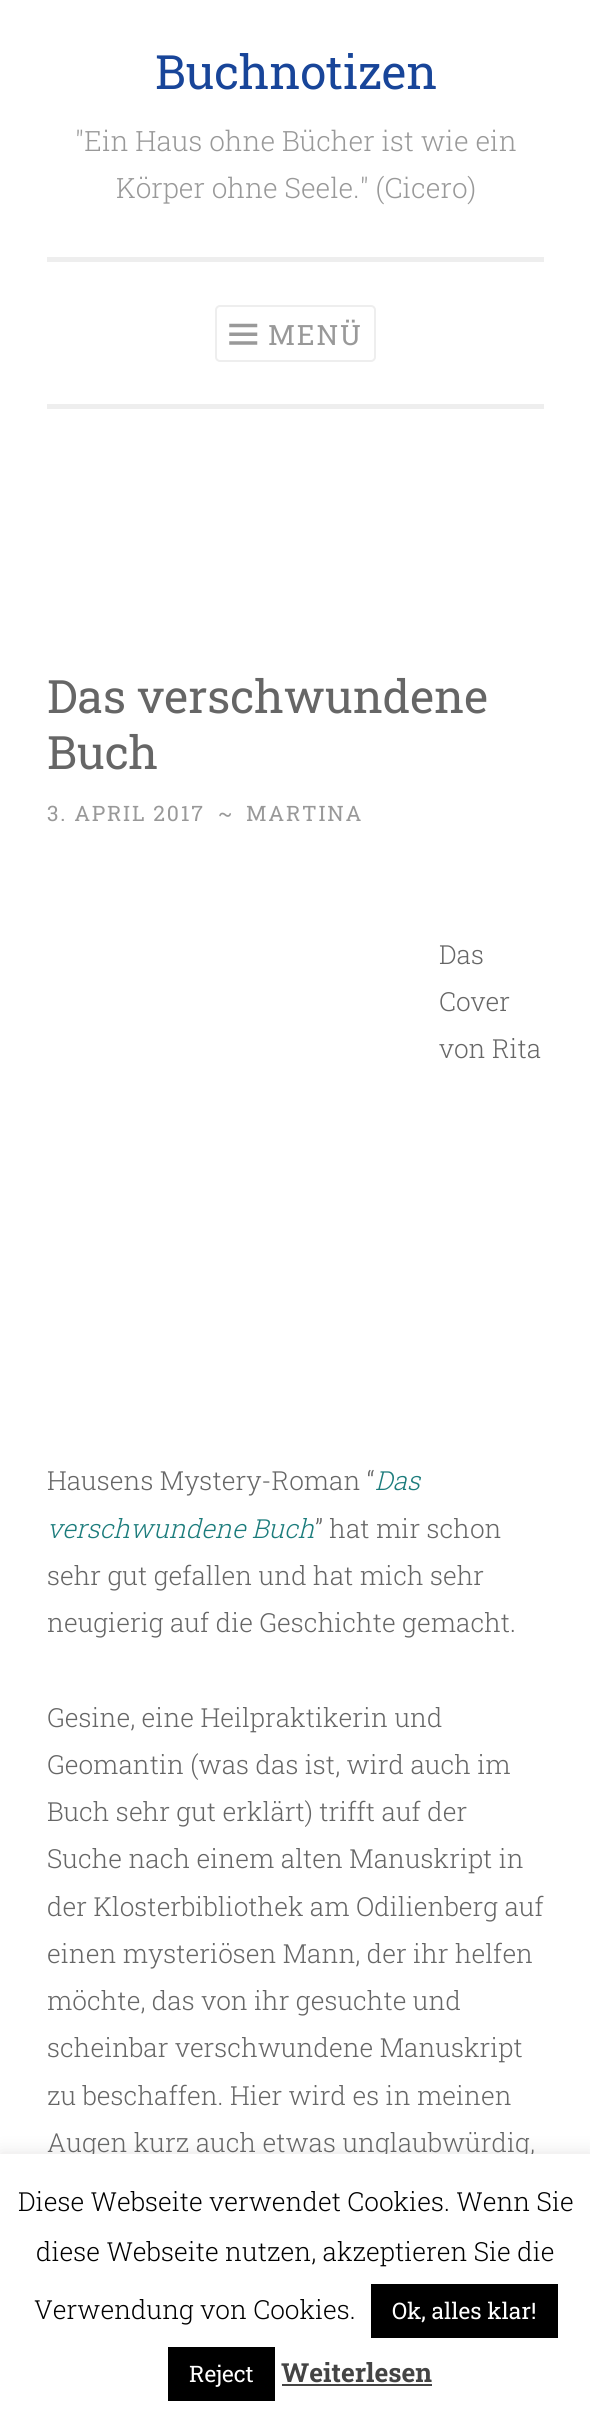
#include <cairo/cairo.h>
#include <math.h>
#include <stddef.h>

static cairo_t *cr;

static void use_color(int r, int g, int b) {
  cairo_set_source_rgb(cr, r / 255.0, g / 255.0, b / 255.0);
}

static void text(double x, double y, const char *s, const char *family, double size, int italic, int bold, int r, int g, int b) {
  cairo_select_font_face(cr, family, italic ? CAIRO_FONT_SLANT_ITALIC : CAIRO_FONT_SLANT_NORMAL,
    bold ? CAIRO_FONT_WEIGHT_BOLD : CAIRO_FONT_WEIGHT_NORMAL);
  cairo_set_font_size(cr, size);
  use_color(r, g, b);
  cairo_move_to(cr, x, y);
  cairo_show_text(cr, s);
}

static void spaced_text(double x, double y, const char *s, double letter, double word) {
  cairo_move_to(cr, x, y);
  while (*s) {
    char ch[5] = {0};
    int n = 0;
    do ch[n++] = *s++; while ((*s & 0xC0) == 0x80);
    cairo_show_text(cr, ch);
    cairo_rel_move_to(cr, letter + word * (*ch == ' '), 0);
  }
}

static void box(double x, double y, double w, double h, int r, int g, int b) {
  use_color(r, g, b);
  cairo_rectangle(cr, x, y, w, h);
  cairo_fill(cr);
}

static void round_rect(double x, double y, double w, double h, double r) {
  cairo_new_sub_path(cr);
  cairo_arc(cr, x + w - r, y + h - r, r, 0, M_PI / 2);
  cairo_arc(cr, x + r, y + h - r, r, M_PI / 2, M_PI);
  cairo_arc(cr, x + r, y + r, r, M_PI, 1.5 * M_PI);
  cairo_arc(cr, x + w - r, y + r, r, 1.5 * M_PI, 2 * M_PI);
  cairo_close_path(cr);
}

static void shadow(double x, double y, double w, double h, double r, double blur, double alpha) {
  cairo_push_group_with_content(cr, CAIRO_CONTENT_ALPHA);
  cairo_set_operator(cr, CAIRO_OPERATOR_SOURCE);
  for (int i = 15; i >= -15 && fmin(w, h) + blur * i / 3 > 0; i -= 2) {
    double e = blur * i / 6;
    cairo_set_source_rgba(cr, 0, 0, 0, alpha * erfc((i - 1) / 8.5) / 2);
    round_rect(x - e, y - e, w + 2 * e, h + 2 * e, fmax(0, fmin(r + e + blur * .6, fmin(w, h) / 2 + e)));
    cairo_fill(cr);
  }
  cairo_pattern_t *soft = cairo_pop_group(cr);
  cairo_mask(cr, soft);
  cairo_pattern_destroy(soft);
}

static void picture(const char *path, double x, double y, double w, double h) {
  cairo_surface_t *image = cairo_image_surface_create_from_png(path);
  cairo_save(cr);
  cairo_set_source_surface(cr, image, x, y);
  cairo_rectangle(cr, x, y, w, h);
  cairo_fill(cr);
  cairo_restore(cr);
  cairo_surface_destroy(image);
}

static void draw(void) {
  use_color(255, 255, 255);
  cairo_paint(cr);
  box(47, 404, 497, 5, 238, 238, 238);
  box(47, 257, 497, 5, 238, 238, 238);
  round_rect(216, 306, 159, 55, 4);
  cairo_stroke(cr);
  picture("img_01.png", 229, 323, 29, 22);
  use_color(172, 171, 171);
  shadow(0, 2153, 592, 267, 0, 9, 0.3);
  text(155, 89, "Buchnotizen", "Roboto Slab", 47.25, 0, 0, 24, 69, 153);
  text(75, 151, "\"Ein Haus ohne Bücher ist wie ein", "Roboto Slab Light", 28, 0, 0, 153, 153, 153);
  text(116, 198, "Körper ohne Seele.\" (Cicero)", "Roboto Slab Light", 28, 0, 0, 153, 153, 153);
  cairo_select_font_face(cr, "Roboto Slab", CAIRO_FONT_SLANT_NORMAL, CAIRO_FONT_WEIGHT_NORMAL);
  spaced_text(268, 345, "MENÜ", 1.75, 0);
  text(47, 713, "Das verschwundene", "Roboto Slab", 46, 0, 0, 102, 102, 102);
  text(47, 769, "Buch", "Roboto Slab", 46, 0, 0, 102, 102, 102);
  cairo_set_font_size(cr, 21.25);
  use_color(153, 153, 153);
  spaced_text(47, 821, "3. APRIL 2017", 1.75, 0);
  spaced_text(218, 821, "~", 1.75, 0);
  spaced_text(246, 821, "MARTINA", 1.75, 0);
  text(439, 964, "Das", "Roboto Slab Light", 26.25, 0, 0, 102, 102, 102);
  text(439, 1011, "Cover", "Roboto Slab Light", 26.25, 0, 0, 102, 102, 102);
  text(439, 1058, "von Rita", "Roboto Slab Light", 26.25, 0, 0, 102, 102, 102);
  text(47, 1490, "Hausens Mystery-Roman “", "Roboto Slab Light", 26.25, 0, 0, 102, 102, 102);
  text(375, 1490, "Das", "Roboto Slab Light", 26.25, 1, 0, 28, 124, 124);
  text(47, 1538, "verschwundene Buch", "Roboto Slab Light", 26.25, 1, 0, 28, 124, 124);
  text(315, 1538, "” hat mir schon", "Roboto Slab Light", 26.25, 0, 0, 102, 102, 102);
  text(47, 1585, "sehr gut gefallen und hat mich sehr", "Roboto Slab Light", 26.25, 0, 0, 102, 102, 102);
  text(47, 1632, "neugierig auf die Geschichte gemacht.", "Roboto Slab Light", 26.25, 0, 0, 102, 102, 102);
  text(47, 1727, "Gesine, eine Heilpraktikerin und", "Roboto Slab Light", 26.25, 0, 0, 102, 102, 102);
  text(47, 1774, "Geomantin (was das ist, wird auch im", "Roboto Slab Light", 26.25, 0, 0, 102, 102, 102);
  text(47, 1821, "Buch sehr gut erklärt) trifft auf der", "Roboto Slab Light", 26.25, 0, 0, 102, 102, 102);
  text(47, 1868, "Suche nach einem alten Manuskript in", "Roboto Slab Light", 26.25, 0, 0, 102, 102, 102);
  text(47, 1916, "der Klosterbibliothek am Odilienberg auf", "Roboto Slab Light", 26.25, 0, 0, 102, 102, 102);
  text(47, 1963, "einen mysteriösen Mann, der ihr helfen", "Roboto Slab Light", 26.25, 0, 0, 102, 102, 102);
  text(47, 2010, "möchte, das von ihr gesuchte und", "Roboto Slab Light", 26.25, 0, 0, 102, 102, 102);
  text(47, 2057, "scheinbar verschwundene Manuskript", "Roboto Slab Light", 26.25, 0, 0, 102, 102, 102);
  text(47, 2105, "zu beschaffen. Hier wird es in meinen", "Roboto Slab Light", 26.25, 0, 0, 102, 102, 102);
  text(47, 2152, "Augen kurz auch etwas unglaubwürdig,", "Roboto Slab Light", 26.25, 0, 0, 102, 102, 102);
  box(0, 2154, 590, 267, 255, 255, 255);
  text(18, 2211, "Diese Webseite verwendet Cookies. Wenn Sie", "Roboto Slab Light", 26.25, 0, 0, 0, 0, 0);
  text(36, 2261, "diese Webseite nutzen, akzeptieren Sie die", "Roboto Slab Light", 26.25, 0, 0, 0, 0, 0);
  text(34, 2319, "Verwendung von Cookies.", "Roboto Slab Light", 26.25, 0, 0, 0, 0, 0);
  box(371, 2284, 187, 54, 0, 0, 0);
  text(392, 2319, "Ok, alles klar!", "Roboto Slab", 22.75, 0, 0, 255, 255, 255);
  box(168, 2347, 107, 54, 0, 0, 0);
  text(189, 2382, "Reject", "Roboto Slab", 22.75, 0, 0, 255, 255, 255);
  text(281, 2382, "Weiterlesen", "Roboto Slab", 26.25, 0, 1, 68, 68, 68);
  box(282, 2384, 150, 2, 68, 68, 68);
}

int main(void) {
  cairo_surface_t *surface = cairo_image_surface_create(CAIRO_FORMAT_RGB24, 590, 2421);
  cr = cairo_create(surface);
  cairo_font_options_t *options = cairo_font_options_create();
  cairo_font_options_set_hint_metrics(options, CAIRO_HINT_METRICS_OFF);
  cairo_font_options_set_hint_style(options, CAIRO_HINT_STYLE_NONE);
  cairo_set_font_options(cr, options);
  cairo_set_miter_limit(cr, 4);
  draw();
  cairo_surface_write_to_png(surface, "out.png");
  cairo_font_options_destroy(options);
  cairo_destroy(cr);
  cairo_surface_destroy(surface);
  return 0;
}
